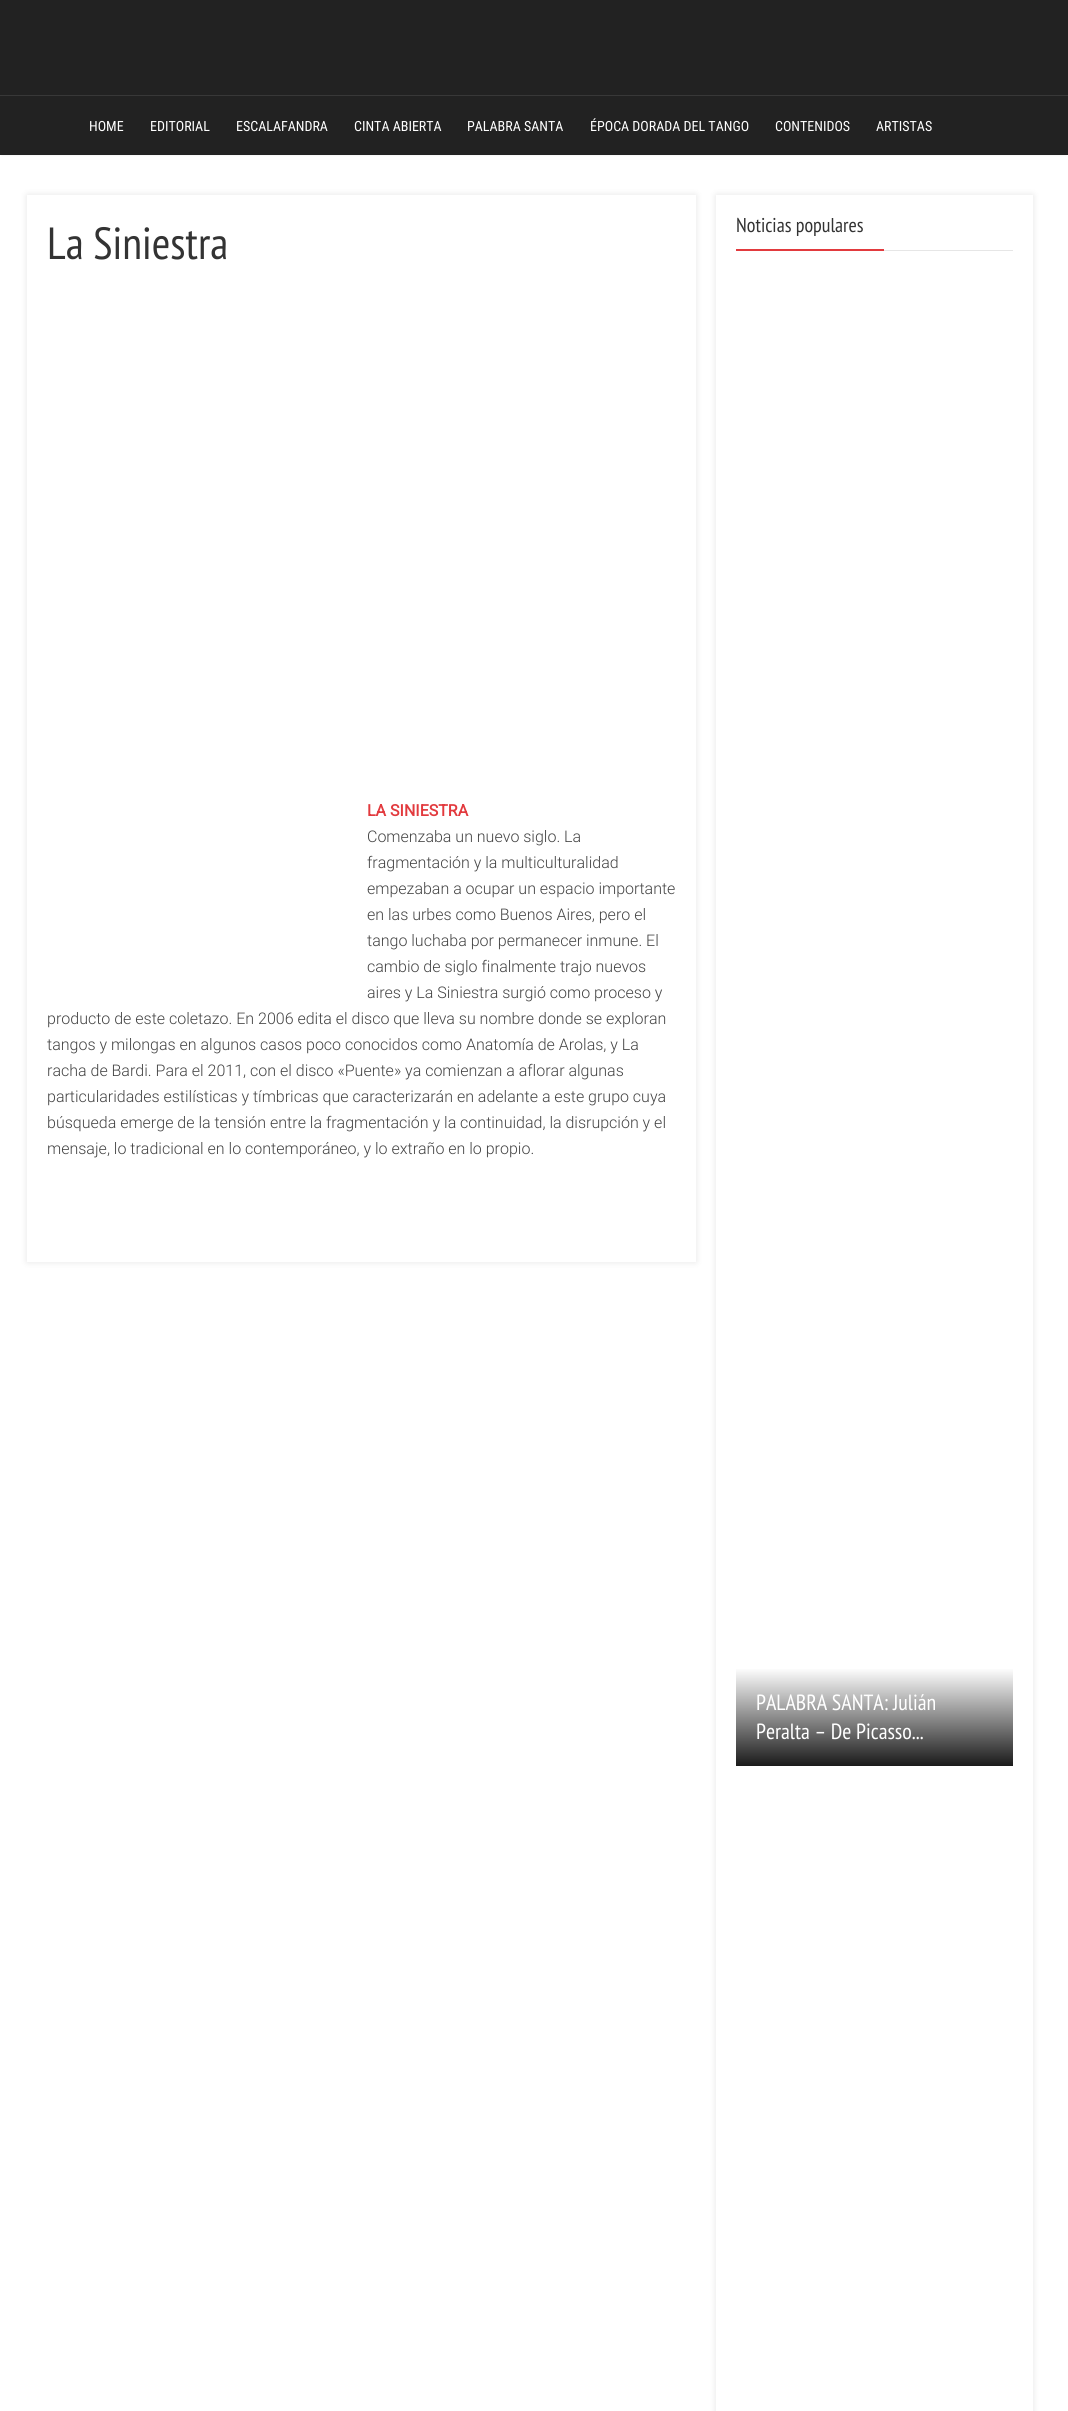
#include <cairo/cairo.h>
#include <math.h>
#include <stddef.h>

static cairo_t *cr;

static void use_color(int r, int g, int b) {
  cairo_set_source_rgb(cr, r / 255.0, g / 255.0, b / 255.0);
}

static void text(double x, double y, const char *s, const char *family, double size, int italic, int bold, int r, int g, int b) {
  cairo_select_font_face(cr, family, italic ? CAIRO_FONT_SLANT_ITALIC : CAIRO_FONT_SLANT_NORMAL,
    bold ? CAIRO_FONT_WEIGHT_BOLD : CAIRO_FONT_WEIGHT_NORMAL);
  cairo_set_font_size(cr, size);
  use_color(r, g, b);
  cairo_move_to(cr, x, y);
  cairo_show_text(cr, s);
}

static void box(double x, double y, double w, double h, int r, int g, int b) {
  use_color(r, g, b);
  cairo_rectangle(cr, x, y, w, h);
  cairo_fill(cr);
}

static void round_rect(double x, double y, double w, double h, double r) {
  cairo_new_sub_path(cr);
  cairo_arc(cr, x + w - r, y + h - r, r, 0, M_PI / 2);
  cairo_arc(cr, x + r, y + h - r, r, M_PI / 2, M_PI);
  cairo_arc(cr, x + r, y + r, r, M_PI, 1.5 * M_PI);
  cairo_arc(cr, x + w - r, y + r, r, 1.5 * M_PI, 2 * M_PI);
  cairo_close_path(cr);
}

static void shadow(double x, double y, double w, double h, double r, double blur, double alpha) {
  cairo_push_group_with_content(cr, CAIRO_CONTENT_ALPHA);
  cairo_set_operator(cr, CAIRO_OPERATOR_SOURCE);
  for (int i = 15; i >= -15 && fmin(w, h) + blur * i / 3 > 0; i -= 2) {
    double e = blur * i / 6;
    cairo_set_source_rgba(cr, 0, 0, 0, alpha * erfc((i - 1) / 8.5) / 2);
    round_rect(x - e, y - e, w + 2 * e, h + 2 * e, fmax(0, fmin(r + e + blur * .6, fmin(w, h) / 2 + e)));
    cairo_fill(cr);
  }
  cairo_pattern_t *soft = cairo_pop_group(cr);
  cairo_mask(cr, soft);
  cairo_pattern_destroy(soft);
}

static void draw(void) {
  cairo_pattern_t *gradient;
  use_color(255, 255, 255);
  cairo_paint(cr);
  use_color(0, 0, 0);
  shadow(2, 4, 1064, 151, 0, 1, 0.1);
  box(0, 0, 1068, 95, 34, 34, 34);
  box(0, 96, 1068, 59, 34, 34, 34);
  box(0, 95, 1068, 1, 56, 56, 56);
  cairo_save(cr);
  cairo_set_fill_rule(cr, CAIRO_FILL_RULE_EVEN_ODD);
  cairo_new_path(cr);
  cairo_move_to(cr, 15, 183);
  cairo_line_to(cr, 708, 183);
  cairo_line_to(cr, 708, 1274);
  cairo_line_to(cr, 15, 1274);
  cairo_close_path(cr);
  cairo_move_to(cr, 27, 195);
  cairo_line_to(cr, 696, 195);
  cairo_line_to(cr, 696, 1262);
  cairo_line_to(cr, 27, 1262);
  cairo_close_path(cr);
  cairo_clip(cr);
  use_color(0, 0, 0);
  shadow(27, 195, 669, 1067, 0, 3.5, 0.1);
  cairo_restore(cr);
  cairo_save(cr);
  cairo_set_fill_rule(cr, CAIRO_FILL_RULE_EVEN_ODD);
  cairo_new_path(cr);
  cairo_move_to(cr, 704, 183);
  cairo_line_to(cr, 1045, 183);
  cairo_line_to(cr, 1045, 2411);
  cairo_line_to(cr, 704, 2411);
  cairo_close_path(cr);
  cairo_move_to(cr, 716, 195);
  cairo_line_to(cr, 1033, 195);
  cairo_line_to(cr, 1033, 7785);
  cairo_line_to(cr, 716, 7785);
  cairo_close_path(cr);
  cairo_clip(cr);
  use_color(0, 0, 0);
  shadow(716, 195, 317, 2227, 0, 3.5, 0.1);
  cairo_restore(cr);
  box(884, 250, 129, 1, 230, 230, 230);
  box(736, 249, 148, 2, 226, 58, 62);
  gradient = cairo_pattern_create_linear(875, 1668, 875, 1766);
  cairo_pattern_add_color_stop_rgba(gradient, 0, 1, 1, 1, 1);
  cairo_pattern_add_color_stop_rgba(gradient, 1, 0.102, 0.102, 0.102, 1);
  cairo_set_source(cr, gradient);
  cairo_pattern_destroy(gradient);
  cairo_rectangle(cr, 736, 1669, 277, 97);
  cairo_fill(cr);
  text(89, 131, "HOME", "Roboto Condensed", 14, 0, 0, 255, 255, 255);
  text(150, 131, "EDITORIAL", "Roboto Condensed", 14, 0, 0, 255, 255, 255);
  text(236, 131, "ESCALAFANDRA", "Roboto Condensed", 14, 0, 0, 255, 255, 255);
  text(354, 131, "CINTA ABIERTA", "Roboto Condensed", 14, 0, 0, 255, 255, 255);
  text(467, 131, "PALABRA SANTA", "Roboto Condensed", 14, 0, 0, 255, 255, 255);
  text(590, 131, "ÉPOCA DORADA DEL TANGO", "Roboto Condensed", 14, 0, 0, 255, 255, 255);
  text(775, 131, "CONTENIDOS", "Roboto Condensed", 14, 0, 0, 255, 255, 255);
  text(876, 131, "ARTISTAS", "Roboto Condensed", 14, 0, 0, 255, 255, 255);
  text(47, 259, "La Siniestra", "PT Sans Narrow", 45, 0, 0, 51, 51, 51);
  text(367, 816, "LA SINIESTRA", "Roboto", 16, 0, 1, 226, 58, 62);
  text(367, 842, "Comenzaba un nuevo siglo. La", "Roboto Light", 16, 0, 0, 68, 68, 68);
  text(367, 868, "fragmentación y la multiculturalidad", "Roboto Light", 16, 0, 0, 68, 68, 68);
  text(367, 894, "empezaban a ocupar un espacio importante", "Roboto Light", 16, 0, 0, 68, 68, 68);
  text(367, 920, "en las urbes como Buenos Aires, pero el", "Roboto Light", 16, 0, 0, 68, 68, 68);
  text(367, 946, "tango luchaba por permanecer inmune. El", "Roboto Light", 16, 0, 0, 68, 68, 68);
  text(367, 972, "cambio de siglo finalmente trajo nuevos", "Roboto Light", 16, 0, 0, 68, 68, 68);
  text(367, 998, "aires y La Siniestra surgió como proceso y", "Roboto Light", 16, 0, 0, 68, 68, 68);
  text(47, 1024, "producto de este coletazo. En 2006 edita el disco que lleva su nombre donde se exploran", "Roboto Light", 16, 0, 0, 68, 68, 68);
  text(47, 1050, "tangos y milongas en algunos casos poco conocidos como Anatomía de Arolas, y La", "Roboto Light", 16, 0, 0, 68, 68, 68);
  text(47, 1076, "racha de Bardi. Para el 2011, con el disco «Puente» ya comienzan a aflorar algunas", "Roboto Light", 16, 0, 0, 68, 68, 68);
  text(47, 1102, "particularidades estilísticas y tímbricas que caracterizarán en adelante a este grupo cuya", "Roboto Light", 16, 0, 0, 68, 68, 68);
  text(47, 1128, "búsqueda emerge de la tensión entre la fragmentación y la continuidad, la disrupción y el", "Roboto Light", 16, 0, 0, 68, 68, 68);
  text(47, 1154, "mensaje, lo tradicional en lo contemporáneo, y lo extraño en lo propio.", "Roboto Light", 16, 0, 0, 68, 68, 68);
  text(736, 232, "Noticias populares", "PT Sans Narrow", 20, 0, 0, 51, 51, 51);
  text(756, 1710, "PALABRA SANTA: Julián", "PT Sans Narrow", 22, 0, 0, 255, 255, 255);
  text(756, 1739, "Peralta – De Picasso...", "PT Sans Narrow", 22, 0, 0, 255, 255, 255);
}

int main(void) {
  cairo_surface_t *surface = cairo_image_surface_create(CAIRO_FORMAT_RGB24, 1068, 2411);
  cr = cairo_create(surface);
  cairo_font_options_t *options = cairo_font_options_create();
  cairo_font_options_set_hint_metrics(options, CAIRO_HINT_METRICS_OFF);
  cairo_font_options_set_hint_style(options, CAIRO_HINT_STYLE_NONE);
  cairo_set_font_options(cr, options);
  cairo_set_miter_limit(cr, 4);
  draw();
  cairo_surface_write_to_png(surface, "out.png");
  cairo_font_options_destroy(options);
  cairo_destroy(cr);
  cairo_surface_destroy(surface);
  return 0;
}
